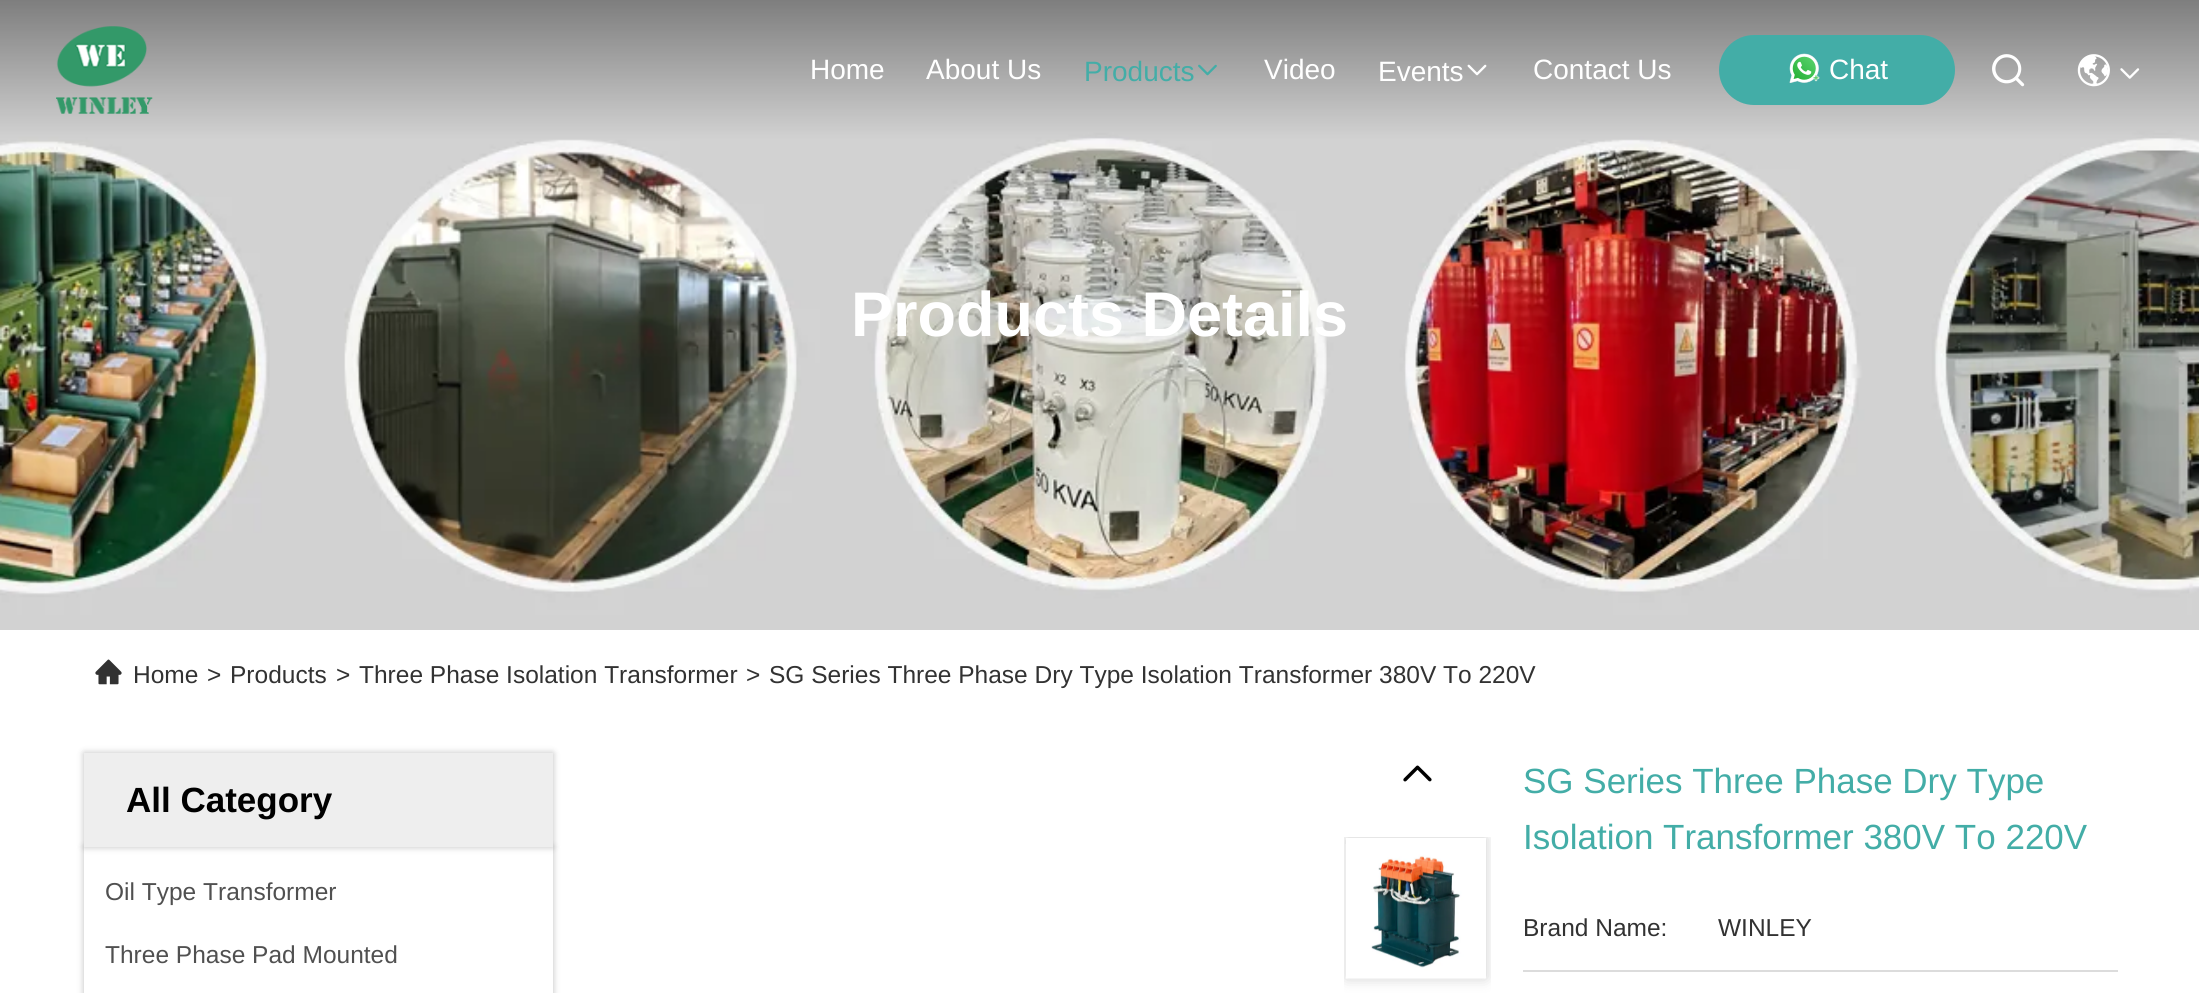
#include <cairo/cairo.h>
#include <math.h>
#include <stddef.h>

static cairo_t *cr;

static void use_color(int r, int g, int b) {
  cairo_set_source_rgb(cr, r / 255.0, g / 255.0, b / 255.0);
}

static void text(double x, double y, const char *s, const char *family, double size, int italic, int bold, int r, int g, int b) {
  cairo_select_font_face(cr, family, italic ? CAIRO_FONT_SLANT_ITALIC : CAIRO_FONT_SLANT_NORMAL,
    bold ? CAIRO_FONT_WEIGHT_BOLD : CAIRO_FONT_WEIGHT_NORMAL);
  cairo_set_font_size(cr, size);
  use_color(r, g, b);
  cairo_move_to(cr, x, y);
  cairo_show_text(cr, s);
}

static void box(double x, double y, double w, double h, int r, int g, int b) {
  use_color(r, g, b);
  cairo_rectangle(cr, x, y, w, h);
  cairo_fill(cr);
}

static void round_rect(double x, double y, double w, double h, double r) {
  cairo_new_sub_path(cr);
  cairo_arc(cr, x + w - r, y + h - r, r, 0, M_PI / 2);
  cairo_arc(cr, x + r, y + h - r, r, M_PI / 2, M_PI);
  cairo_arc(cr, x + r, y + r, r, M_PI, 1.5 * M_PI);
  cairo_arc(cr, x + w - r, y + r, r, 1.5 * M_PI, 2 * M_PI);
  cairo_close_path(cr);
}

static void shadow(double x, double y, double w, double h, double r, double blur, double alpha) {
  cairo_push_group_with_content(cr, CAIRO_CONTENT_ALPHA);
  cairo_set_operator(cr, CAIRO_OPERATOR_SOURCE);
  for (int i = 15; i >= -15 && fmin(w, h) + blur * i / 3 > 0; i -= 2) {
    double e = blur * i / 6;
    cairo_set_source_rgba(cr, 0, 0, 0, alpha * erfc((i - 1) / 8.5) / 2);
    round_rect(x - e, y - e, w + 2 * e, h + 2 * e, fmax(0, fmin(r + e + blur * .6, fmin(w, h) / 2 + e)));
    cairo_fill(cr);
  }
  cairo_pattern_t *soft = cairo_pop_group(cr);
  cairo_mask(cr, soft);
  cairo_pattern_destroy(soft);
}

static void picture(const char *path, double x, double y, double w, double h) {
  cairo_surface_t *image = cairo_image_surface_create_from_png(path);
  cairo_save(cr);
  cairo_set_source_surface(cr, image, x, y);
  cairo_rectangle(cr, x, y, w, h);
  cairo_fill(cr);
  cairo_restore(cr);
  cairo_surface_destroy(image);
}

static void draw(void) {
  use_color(255, 255, 255);
  cairo_paint(cr);
  picture("img_08.png", 0, 0, 2199, 630);
  picture("img_01.png", 56, 26, 97, 88);
  picture("img_02.png", 1198, 64, 19, 12);
  picture("img_03.png", 1467, 64, 20, 12);
  use_color(67, 173, 167);
  round_rect(1719, 35, 236, 70, 35);
  cairo_fill(cr);
  picture("img_04.png", 1789, 53, 31, 30);
  picture("img_05.png", 1992, 54, 33, 33);
  picture("img_06.png", 2077, 54, 33, 33);
  picture("img_07.png", 2120, 68, 20, 11);
  picture("img_09.png", 95, 659, 27, 26);
  use_color(0, 0, 0);
  shadow(84, 753, 469, 94, 0, 3.5, 0.25);
  cairo_save(cr);
  cairo_set_fill_rule(cr, CAIRO_FILL_RULE_EVEN_ODD);
  cairo_new_path(cr);
  cairo_move_to(cr, 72, 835);
  cairo_line_to(cr, 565, 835);
  cairo_line_to(cr, 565, 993);
  cairo_line_to(cr, 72, 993);
  cairo_close_path(cr);
  cairo_move_to(cr, 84, 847);
  cairo_line_to(cr, 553, 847);
  cairo_line_to(cr, 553, 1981);
  cairo_line_to(cr, 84, 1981);
  cairo_close_path(cr);
  cairo_clip(cr);
  shadow(84, 847, 469, 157, 0, 3.5, 0.25);
  cairo_restore(cr);
  box(84, 753, 469, 94, 238, 238, 238);
  picture("img_10.png", 1403, 765, 29, 17);
  cairo_save(cr);
  cairo_rectangle(cr, 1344, 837, 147, 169);
  cairo_clip(cr);
  cairo_set_fill_rule(cr, CAIRO_FILL_RULE_EVEN_ODD);
  cairo_new_path(cr);
  cairo_move_to(cr, 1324, 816);
  cairo_line_to(cr, 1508, 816);
  cairo_line_to(cr, 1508, 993);
  cairo_line_to(cr, 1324, 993);
  cairo_close_path(cr);
  cairo_move_to(cr, 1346, 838);
  cairo_line_to(cr, 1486, 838);
  cairo_line_to(cr, 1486, 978);
  cairo_line_to(cr, 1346, 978);
  cairo_close_path(cr);
  cairo_clip(cr);
  use_color(0, 0, 0);
  shadow(1346, 838, 140, 140, 0, 7, 0.2);
  cairo_restore(cr);
  picture("img_11.png", 1345, 844, 141, 135);
  box(1523, 970, 595, 2, 220, 220, 220);
  text(810, 79, "Home", "Liberation Sans", 28, 0, 0, 255, 255, 255);
  text(926, 79, "About Us", "Liberation Sans", 28, 0, 0, 255, 255, 255);
  text(1084, 81, "Products", "Liberation Sans", 28, 0, 0, 67, 173, 167);
  text(1264, 79, "Video", "Liberation Sans", 28, 0, 0, 255, 255, 255);
  text(1378, 81, "Events", "Liberation Sans", 28, 0, 0, 255, 255, 255);
  text(1533, 79, "Contact Us", "Liberation Sans", 28, 0, 0, 255, 255, 255);
  text(1829, 79, "Chat", "Liberation Sans", 28, 0, 0, 255, 255, 255);
  text(851, 336, "Products Details", "Liberation Sans", 63, 0, 1, 255, 255, 255);
  text(133, 683, "Home", "Liberation Sans", 24.5, 0, 0, 50, 50, 50);
  text(207, 683, ">", "Liberation Sans", 24.5, 0, 0, 50, 50, 50);
  text(230, 683, "Products", "Liberation Sans", 24.5, 0, 0, 50, 50, 50);
  text(336, 683, ">", "Liberation Sans", 24.5, 0, 0, 50, 50, 50);
  text(359, 683, "Three Phase Isolation Transformer", "Liberation Sans", 24.5, 0, 0, 50, 50, 50);
  text(746, 683, ">", "Liberation Sans", 24.5, 0, 0, 50, 50, 50);
  text(769, 683, "SG Series Three Phase Dry Type Isolation Transformer 380V To 220V", "Liberation Sans", 24.5, 0, 0, 50, 50, 50);
  text(126, 812, "All Category", "Liberation Sans", 35, 0, 1, 0, 0, 0);
  text(105, 900, "Oil Type Transformer", "Liberation Sans", 24.5, 0, 0, 80, 80, 80);
  text(105, 963, "Three Phase Pad Mounted", "Liberation Sans", 24.5, 0, 0, 80, 80, 80);
  text(1523, 793, "SG Series Three Phase Dry Type", "Liberation Sans", 35, 0, 0, 67, 173, 167);
  text(1523, 849, "Isolation Transformer 380V To 220V", "Liberation Sans", 35, 0, 0, 67, 173, 167);
  text(1523, 936, "Brand Name:", "Liberation Sans", 24.5, 0, 0, 50, 50, 50);
  text(1718, 936, "WINLEY", "Liberation Sans", 24.5, 0, 0, 50, 50, 50);
}

int main(void) {
  cairo_surface_t *surface = cairo_image_surface_create(CAIRO_FORMAT_RGB24, 2199, 993);
  cr = cairo_create(surface);
  cairo_font_options_t *options = cairo_font_options_create();
  cairo_font_options_set_hint_metrics(options, CAIRO_HINT_METRICS_OFF);
  cairo_font_options_set_hint_style(options, CAIRO_HINT_STYLE_NONE);
  cairo_set_font_options(cr, options);
  cairo_set_miter_limit(cr, 4);
  draw();
  cairo_surface_write_to_png(surface, "out.png");
  cairo_font_options_destroy(options);
  cairo_destroy(cr);
  cairo_surface_destroy(surface);
  return 0;
}
